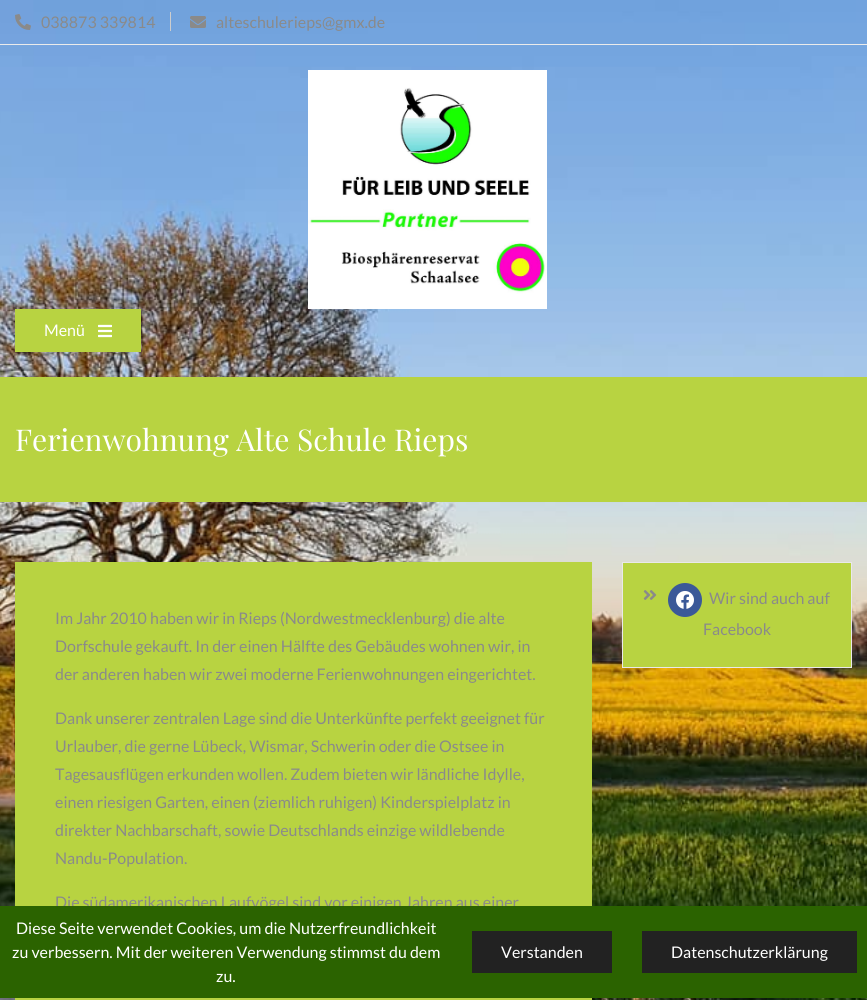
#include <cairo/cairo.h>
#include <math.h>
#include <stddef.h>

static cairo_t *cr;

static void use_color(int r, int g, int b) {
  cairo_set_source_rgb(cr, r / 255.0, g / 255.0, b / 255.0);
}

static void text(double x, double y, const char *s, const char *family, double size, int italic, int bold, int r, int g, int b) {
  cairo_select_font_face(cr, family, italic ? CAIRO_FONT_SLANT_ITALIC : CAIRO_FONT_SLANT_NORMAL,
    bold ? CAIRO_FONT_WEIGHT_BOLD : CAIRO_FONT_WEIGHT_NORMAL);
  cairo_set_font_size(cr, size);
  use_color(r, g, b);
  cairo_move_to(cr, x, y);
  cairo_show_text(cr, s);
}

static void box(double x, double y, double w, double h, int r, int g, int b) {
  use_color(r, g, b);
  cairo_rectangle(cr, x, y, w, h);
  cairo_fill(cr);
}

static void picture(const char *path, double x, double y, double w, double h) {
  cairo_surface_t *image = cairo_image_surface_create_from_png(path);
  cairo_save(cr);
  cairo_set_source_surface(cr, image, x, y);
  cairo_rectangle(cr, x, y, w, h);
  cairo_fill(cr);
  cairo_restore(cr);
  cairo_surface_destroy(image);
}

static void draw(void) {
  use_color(255, 255, 255);
  cairo_paint(cr);
  picture("img_01.png", 0, 0, 867, 1000);
  box(0, 44, 867, 1, 235, 235, 235);
  box(170, 12, 1, 19, 205, 205, 205);
  picture("img_02.png", 15, 14, 16, 16);
  picture("img_03.png", 190, 16, 16, 12);
  picture("img_04.png", 308, 70, 239, 239);
  box(15, 309, 126, 43, 184, 211, 65);
  picture("img_05.png", 98, 324, 14, 14);
  box(0, 377, 867, 125, 184, 211, 65);
  box(15, 562, 577, 438, 184, 211, 65);
  cairo_rectangle(cr, 622.5, 562.5, 229, 105);
  cairo_fill_preserve(cr);
  use_color(233, 233, 233);
  cairo_set_line_width(cr, 1);
  cairo_stroke(cr);
  picture("img_06.png", 643, 590, 14, 10);
  use_color(59, 89, 152);
  cairo_arc(cr, 685, 600, 17, 0, 2 * M_PI);
  cairo_fill(cr);
  picture("img_07.png", 676, 591, 18, 18);
  text(41, 28, "038873 339814", "Lato", 16, 0, 0, 138, 138, 138);
  text(216, 28, "alteschulerieps@gmx.de", "Lato", 16, 0, 0, 138, 138, 138);
  text(44, 336, "Menü", "Lato", 16, 0, 0, 255, 255, 255);
  text(15, 451, "Ferienwohnung Alte Schule Rieps", "Playfair Display", 30, 0, 0, 255, 255, 255);
  text(55, 624, "Im Jahr 2010 haben wir in Rieps (Nordwestmecklenburg) die alte", "Lato", 16, 0, 0, 138, 138, 138);
  text(55, 652, "Dorfschule gekauft. In der einen Hälfte des Gebäudes wohnen wir, in", "Lato", 16, 0, 0, 138, 138, 138);
  text(55, 680, "der anderen haben wir zwei moderne Ferienwohnungen eingerichtet.", "Lato", 16, 0, 0, 138, 138, 138);
  text(55, 724, "Dank unserer zentralen Lage sind die Unterkünfte perfekt geeignet für", "Lato", 16, 0, 0, 138, 138, 138);
  text(55, 752, "Urlauber, die gerne Lübeck, Wismar, Schwerin oder die Ostsee in", "Lato", 16, 0, 0, 138, 138, 138);
  text(55, 780, "Tagesausflügen erkunden wollen. Zudem bieten wir ländliche Idylle,", "Lato", 16, 0, 0, 138, 138, 138);
  text(55, 808, "einen riesigen Garten, einen (ziemlich ruhigen) Kinderspielplatz in", "Lato", 16, 0, 0, 138, 138, 138);
  text(55, 836, "direkter Nachbarschaft, sowie Deutschlands einzige wildlebende", "Lato", 16, 0, 0, 138, 138, 138);
  text(55, 864, "Nandu-Population.", "Lato", 16, 0, 0, 138, 138, 138);
  text(55, 908, "Die südamerikanischen Laufvögel sind vor einigen Jahren aus einer", "Lato", 16, 0, 0, 138, 138, 138);
  text(709, 604, "Wir sind auch auf", "Lato", 16, 0, 0, 138, 138, 138);
  text(703, 635, "Facebook", "Lato", 16, 0, 0, 138, 138, 138);
  box(0, 906, 867, 92, 43, 99, 0);
  text(16, 934, "Diese Seite verwendet Cookies, um die Nutzerfreundlichkeit", "Lato", 16, 0, 0, 255, 255, 255);
  text(12, 958, "zu verbessern. Mit der weiteren Verwendung stimmst du dem", "Lato", 16, 0, 0, 255, 255, 255);
  text(216, 982, "zu.", "Lato", 16, 0, 0, 255, 255, 255);
  box(472, 931, 140, 42, 34, 34, 34);
  text(501, 958, "Verstanden", "Lato", 16, 0, 0, 255, 255, 255);
  box(642, 931, 215, 42, 34, 34, 34);
  text(671, 958, "Datenschutzerklärung", "Lato", 16, 0, 0, 255, 255, 255);
}

int main(void) {
  cairo_surface_t *surface = cairo_image_surface_create(CAIRO_FORMAT_RGB24, 867, 1000);
  cr = cairo_create(surface);
  cairo_font_options_t *options = cairo_font_options_create();
  cairo_font_options_set_hint_metrics(options, CAIRO_HINT_METRICS_OFF);
  cairo_font_options_set_hint_style(options, CAIRO_HINT_STYLE_NONE);
  cairo_set_font_options(cr, options);
  cairo_set_miter_limit(cr, 4);
  draw();
  cairo_surface_write_to_png(surface, "out.png");
  cairo_font_options_destroy(options);
  cairo_destroy(cr);
  cairo_surface_destroy(surface);
  return 0;
}
